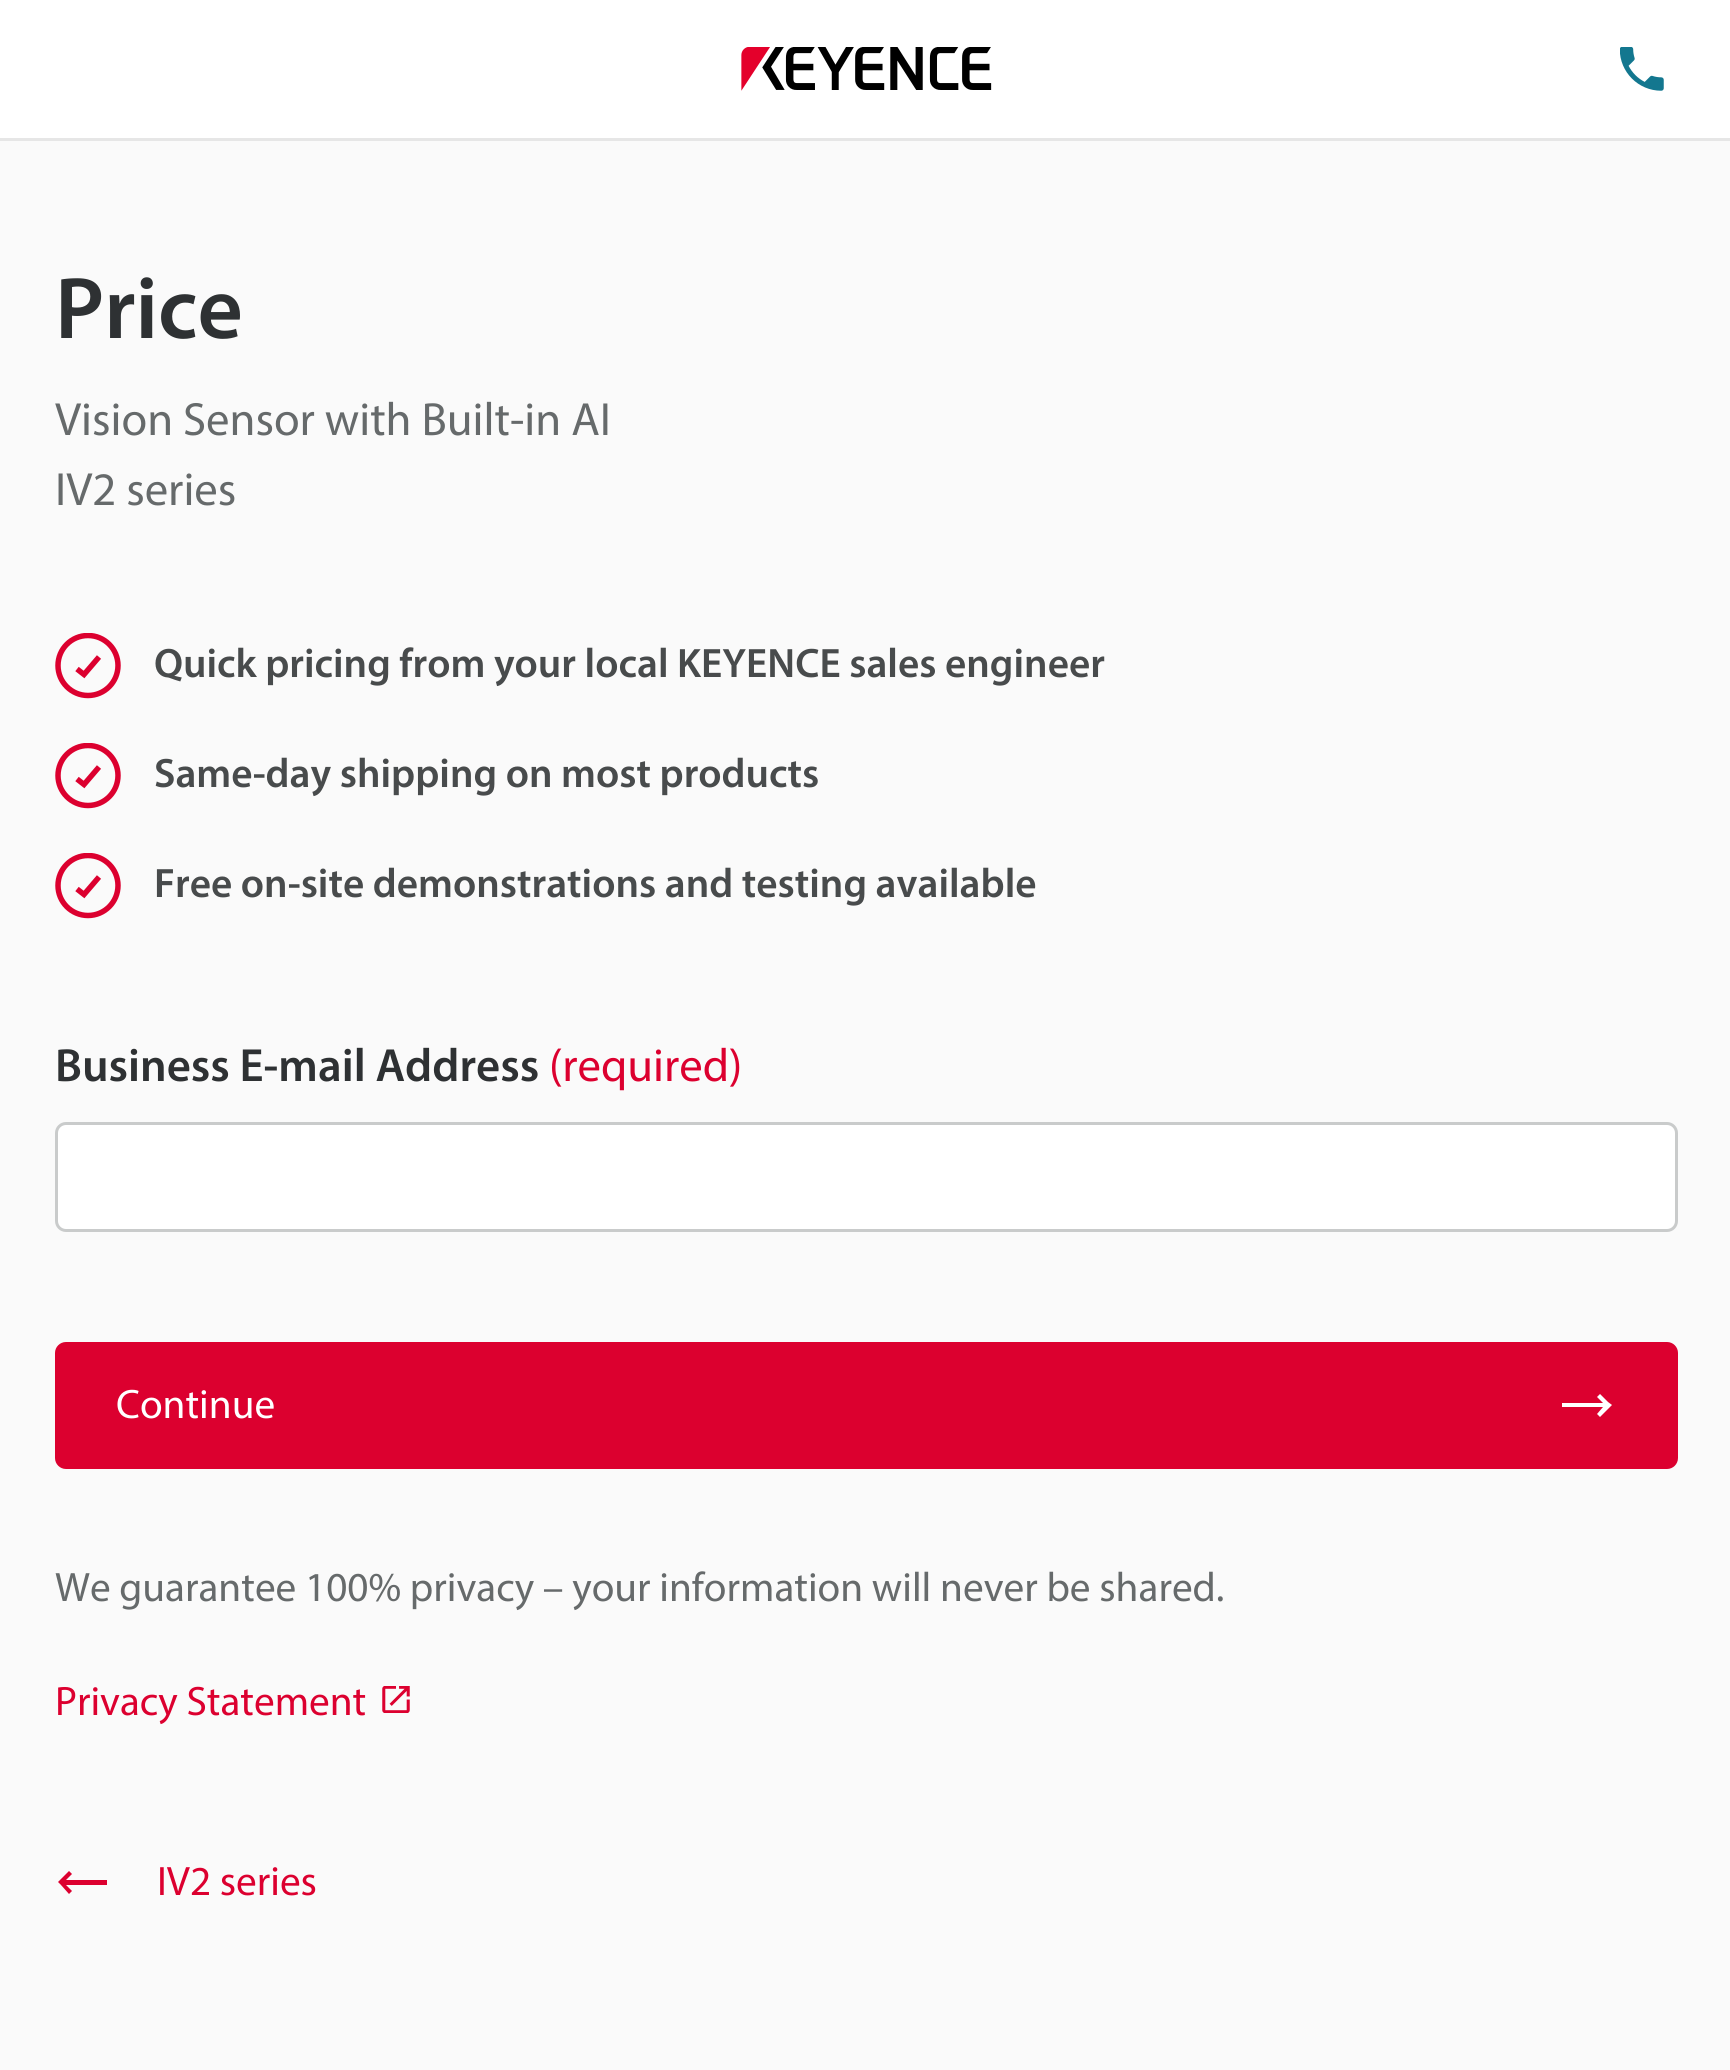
#include <cairo/cairo.h>
#include <math.h>
#include <stddef.h>

static cairo_t *cr;

static void use_color(int r, int g, int b) {
  cairo_set_source_rgb(cr, r / 255.0, g / 255.0, b / 255.0);
}

static void text(double x, double y, const char *s, const char *family, double size, int italic, int bold, int r, int g, int b) {
  cairo_select_font_face(cr, family, italic ? CAIRO_FONT_SLANT_ITALIC : CAIRO_FONT_SLANT_NORMAL,
    bold ? CAIRO_FONT_WEIGHT_BOLD : CAIRO_FONT_WEIGHT_NORMAL);
  cairo_set_font_size(cr, size);
  use_color(r, g, b);
  cairo_move_to(cr, x, y);
  cairo_show_text(cr, s);
}

static void box(double x, double y, double w, double h, int r, int g, int b) {
  use_color(r, g, b);
  cairo_rectangle(cr, x, y, w, h);
  cairo_fill(cr);
}

static void round_rect(double x, double y, double w, double h, double r) {
  cairo_new_sub_path(cr);
  cairo_arc(cr, x + w - r, y + h - r, r, 0, M_PI / 2);
  cairo_arc(cr, x + r, y + h - r, r, M_PI / 2, M_PI);
  cairo_arc(cr, x + r, y + r, r, M_PI, 1.5 * M_PI);
  cairo_arc(cr, x + w - r, y + r, r, 1.5 * M_PI, 2 * M_PI);
  cairo_close_path(cr);
}

static void picture(const char *path, double x, double y, double w, double h) {
  cairo_surface_t *image = cairo_image_surface_create_from_png(path);
  cairo_save(cr);
  cairo_set_source_surface(cr, image, x, y);
  cairo_rectangle(cr, x, y, w, h);
  cairo_fill(cr);
  cairo_restore(cr);
  cairo_surface_destroy(image);
}

static void draw(void) {
  use_color(250, 250, 250);
  cairo_paint(cr);
  box(0, 0, 1730, 138, 255, 255, 255);
  box(0, 138, 1730, 3, 230, 230, 230);
  picture("img_01.png", 741, 47, 251, 44);
  picture("img_02.png", 1620, 47, 44, 44);
  cairo_new_path(cr);
  cairo_move_to(cr, 77, 669);
  cairo_line_to(cr, 84, 674.5);
  cairo_line_to(cr, 99, 657);
  use_color(220, 0, 47);
  cairo_set_line_width(cr, 5.5);
  cairo_stroke(cr);
  cairo_save(cr);
  cairo_rectangle(cr, 55, 633, 66, 66);
  cairo_clip(cr);
  cairo_arc(cr, 88, 665.5, 30, 0, 2 * M_PI);
  cairo_stroke(cr);
  cairo_restore(cr);
  cairo_new_path(cr);
  cairo_move_to(cr, 77, 779);
  cairo_line_to(cr, 84, 784.5);
  cairo_line_to(cr, 99, 767);
  cairo_stroke(cr);
  cairo_save(cr);
  cairo_rectangle(cr, 55, 743, 66, 66);
  cairo_clip(cr);
  cairo_arc(cr, 88, 775.5, 30, 0, 2 * M_PI);
  cairo_stroke(cr);
  cairo_restore(cr);
  cairo_new_path(cr);
  cairo_move_to(cr, 77, 889);
  cairo_line_to(cr, 84, 894.5);
  cairo_line_to(cr, 99, 877);
  cairo_stroke(cr);
  cairo_save(cr);
  cairo_rectangle(cr, 55, 853, 66, 66);
  cairo_clip(cr);
  cairo_arc(cr, 88, 885.5, 30, 0, 2 * M_PI);
  cairo_stroke(cr);
  cairo_restore(cr);
  use_color(255, 255, 255);
  round_rect(56.5, 1123.5, 1620, 107, 9.5);
  cairo_fill_preserve(cr);
  use_color(201, 203, 203);
  cairo_set_line_width(cr, 3);
  cairo_stroke(cr);
  use_color(220, 0, 47);
  round_rect(55, 1342, 1623, 127, 11);
  cairo_fill(cr);
  use_color(255, 255, 255);
  cairo_new_path(cr);
  cairo_move_to(cr, 1608, 1402);
  cairo_line_to(cr, 1600, 1394);
  cairo_line_to(cr, 1597, 1397);
  cairo_line_to(cr, 1603, 1403);
  cairo_line_to(cr, 1562, 1403);
  cairo_line_to(cr, 1562, 1407);
  cairo_line_to(cr, 1603, 1407);
  cairo_line_to(cr, 1597, 1414);
  cairo_line_to(cr, 1600, 1417);
  cairo_line_to(cr, 1612, 1405);
  cairo_close_path(cr);
  cairo_fill(cr);
  picture("img_03.png", 382, 1686, 28, 27);
  use_color(220, 0, 47);
  cairo_new_path(cr);
  cairo_move_to(cr, 61, 1885);
  cairo_line_to(cr, 69, 1894);
  cairo_line_to(cr, 72, 1891);
  cairo_line_to(cr, 66, 1885);
  cairo_line_to(cr, 107, 1885);
  cairo_line_to(cr, 107, 1880);
  cairo_line_to(cr, 66, 1880);
  cairo_line_to(cr, 72, 1874);
  cairo_line_to(cr, 69, 1871);
  cairo_line_to(cr, 58, 1882);
  cairo_close_path(cr);
  cairo_fill(cr);
  text(55, 338, "Price", "Myriad SemiBold", 88, 0, 0, 46, 49, 51);
  text(55, 435, "Vision Sensor with Built-in AI", "Myriad", 46.75, 0, 0, 102, 106, 107);
  text(55, 505, "IV2 series", "Myriad", 46.75, 0, 0, 102, 106, 107);
  text(154, 677, "Quick pricing from your local KEYENCE sales engineer", "Myriad SemiBold", 41.25, 0, 0, 72, 75, 76);
  text(154, 787, "Same-day shipping on most products", "Myriad SemiBold", 41.25, 0, 0, 72, 75, 76);
  text(154, 897, "Free on-site demonstrations and testing available", "Myriad SemiBold", 41.25, 0, 0, 72, 75, 76);
  text(55, 1081, "Business E-mail Address", "Myriad SemiBold", 46.75, 0, 0, 46, 49, 51);
  text(549, 1081, "(required)", "Myriad", 46.75, 0, 0, 220, 0, 47);
  text(116, 1418, "Continue", "Myriad", 41.25, 0, 0, 255, 255, 255);
  text(55, 1601, "We guarantee 100% privacy – your information will never be shared.", "Myriad", 41.25, 0, 0, 102, 106, 107);
  text(55, 1715, "Privacy Statement", "Myriad", 41.25, 0, 0, 220, 0, 47);
  text(157, 1895, "IV2 series", "Myriad", 41.25, 0, 0, 220, 0, 47);
}

int main(void) {
  cairo_surface_t *surface = cairo_image_surface_create(CAIRO_FORMAT_RGB24, 1730, 2070);
  cr = cairo_create(surface);
  cairo_font_options_t *options = cairo_font_options_create();
  cairo_font_options_set_hint_metrics(options, CAIRO_HINT_METRICS_OFF);
  cairo_font_options_set_hint_style(options, CAIRO_HINT_STYLE_NONE);
  cairo_set_font_options(cr, options);
  cairo_set_miter_limit(cr, 4);
  draw();
  cairo_surface_write_to_png(surface, "out.png");
  cairo_font_options_destroy(options);
  cairo_destroy(cr);
  cairo_surface_destroy(surface);
  return 0;
}
